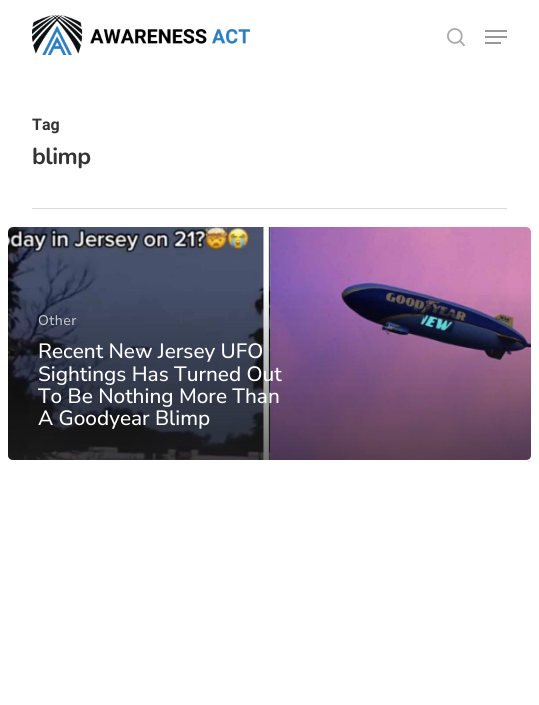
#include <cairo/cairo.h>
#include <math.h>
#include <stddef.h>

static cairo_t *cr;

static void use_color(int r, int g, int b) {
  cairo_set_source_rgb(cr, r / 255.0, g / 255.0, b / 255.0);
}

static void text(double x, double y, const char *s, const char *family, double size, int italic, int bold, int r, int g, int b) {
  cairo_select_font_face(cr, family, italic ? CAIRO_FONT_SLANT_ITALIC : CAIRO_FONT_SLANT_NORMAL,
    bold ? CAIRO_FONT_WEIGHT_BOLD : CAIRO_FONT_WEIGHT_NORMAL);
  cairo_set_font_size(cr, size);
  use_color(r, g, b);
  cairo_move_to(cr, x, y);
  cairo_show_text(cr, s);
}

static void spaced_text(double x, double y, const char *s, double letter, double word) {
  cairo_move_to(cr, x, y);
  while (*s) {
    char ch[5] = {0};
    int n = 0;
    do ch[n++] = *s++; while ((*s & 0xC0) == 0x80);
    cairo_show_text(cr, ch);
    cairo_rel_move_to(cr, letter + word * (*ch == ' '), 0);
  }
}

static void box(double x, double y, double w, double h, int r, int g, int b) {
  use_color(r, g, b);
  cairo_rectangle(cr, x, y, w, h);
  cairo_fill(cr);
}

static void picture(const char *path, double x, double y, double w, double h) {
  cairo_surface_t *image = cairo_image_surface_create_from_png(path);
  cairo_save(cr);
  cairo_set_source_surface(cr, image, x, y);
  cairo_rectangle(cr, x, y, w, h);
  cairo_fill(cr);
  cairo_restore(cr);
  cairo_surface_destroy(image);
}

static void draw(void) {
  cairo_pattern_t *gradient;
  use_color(255, 255, 255);
  cairo_paint(cr);
  picture("img_01.png", 32, 15, 218, 40);
  picture("img_02.png", 447, 28, 18, 18);
  box(485, 30, 22, 2, 153, 153, 153);
  box(485, 42, 16, 2, 153, 153, 153);
  box(485, 36, 22, 2, 153, 153, 153);
  box(32, 208, 475, 1, 217, 217, 217);
  picture("img_03.png", 8, 227, 523, 233);
  gradient = cairo_pattern_create_linear(271, 286, 271, 461);
  cairo_pattern_add_color_stop_rgba(gradient, 0, 0.137, 0.137, 0.137, 0);
  cairo_pattern_add_color_stop_rgba(gradient, 1, 0.137, 0.137, 0.137, 0.65);
  cairo_set_source(cr, gradient);
  cairo_pattern_destroy(gradient);
  cairo_new_path(cr);
  cairo_move_to(cr, 8, 286);
  cairo_line_to(cr, 531, 286);
  cairo_line_to(cr, 531, 455);
  cairo_curve_to(cr, 531, 458, 529, 460, 526, 460);
  cairo_line_to(cr, 13, 460);
  cairo_curve_to(cr, 10, 460, 8, 458, 8, 455);
  cairo_close_path(cr);
  cairo_fill(cr);
  text(32, 130, "Tag", "Roboto", 16, 0, 1, 51, 51, 51);
  cairo_select_font_face(cr, "Nunito", CAIRO_FONT_SLANT_NORMAL, CAIRO_FONT_WEIGHT_BOLD);
  cairo_set_font_size(cr, 23);
  spaced_text(32, 164, "blimp", -0.5, 0);
  cairo_select_font_face(cr, "Nunito Sans Medium", CAIRO_FONT_SLANT_NORMAL, CAIRO_FONT_WEIGHT_NORMAL);
  cairo_set_font_size(cr, 14);
  use_color(197, 199, 206);
  spaced_text(38, 325, "Other", 0.5, 0);
  text(38, 358, "Recent New Jersey UFO", "Nunito Sans Medium", 20.75, 0, 0, 255, 255, 255);
  text(38, 381, "Sightings Has Turned Out", "Nunito Sans Medium", 20.75, 0, 0, 255, 255, 255);
  text(38, 403, "To Be Nothing More Than", "Nunito Sans Medium", 20.75, 0, 0, 255, 255, 255);
  text(38, 425, "A Goodyear Blimp", "Nunito Sans Medium", 20.75, 0, 0, 255, 255, 255);
}

int main(void) {
  cairo_surface_t *surface = cairo_image_surface_create(CAIRO_FORMAT_RGB24, 539, 705);
  cr = cairo_create(surface);
  cairo_font_options_t *options = cairo_font_options_create();
  cairo_font_options_set_hint_metrics(options, CAIRO_HINT_METRICS_OFF);
  cairo_font_options_set_hint_style(options, CAIRO_HINT_STYLE_NONE);
  cairo_set_font_options(cr, options);
  cairo_set_miter_limit(cr, 4);
  draw();
  cairo_surface_write_to_png(surface, "out.png");
  cairo_font_options_destroy(options);
  cairo_destroy(cr);
  cairo_surface_destroy(surface);
  return 0;
}
